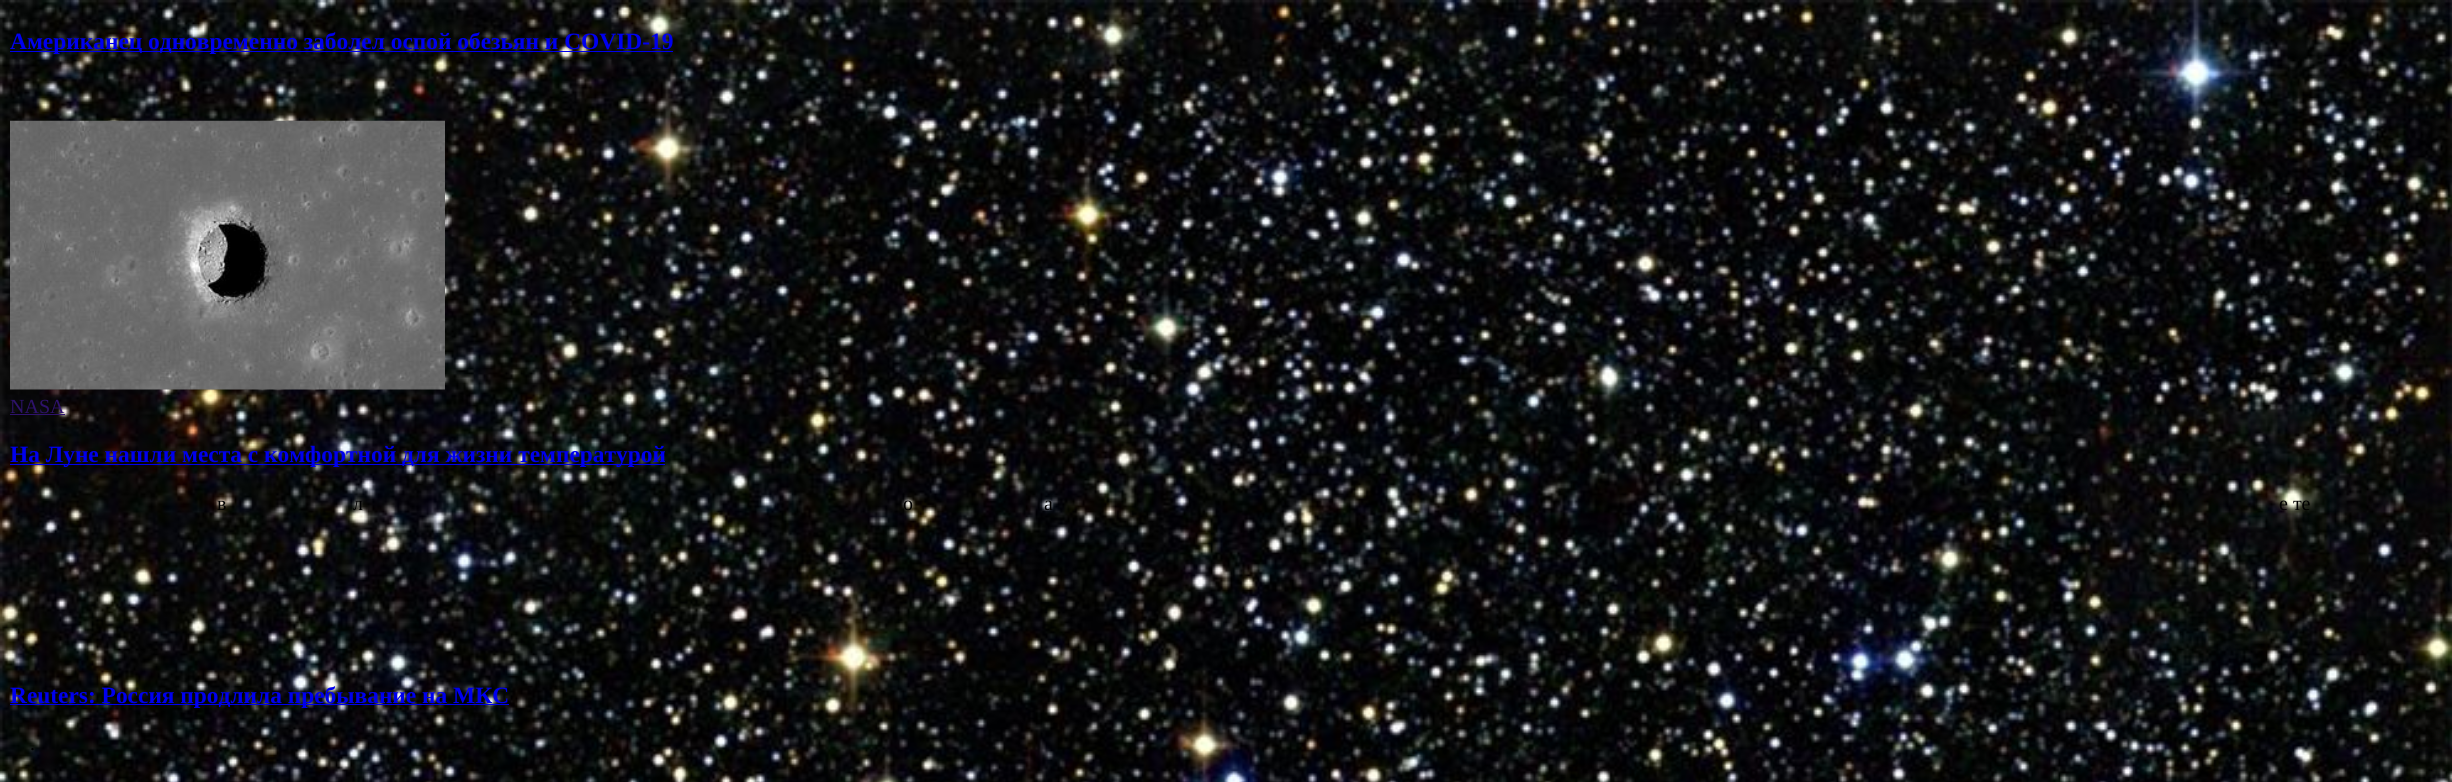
#include <cairo/cairo.h>
#include <math.h>
#include <stddef.h>

static cairo_t *cr;

static void use_color(int r, int g, int b) {
  cairo_set_source_rgb(cr, r / 255.0, g / 255.0, b / 255.0);
}

static void text(double x, double y, const char *s, const char *family, double size, int italic, int bold, int r, int g, int b) {
  cairo_select_font_face(cr, family, italic ? CAIRO_FONT_SLANT_ITALIC : CAIRO_FONT_SLANT_NORMAL,
    bold ? CAIRO_FONT_WEIGHT_BOLD : CAIRO_FONT_WEIGHT_NORMAL);
  cairo_set_font_size(cr, size);
  use_color(r, g, b);
  cairo_move_to(cr, x, y);
  cairo_show_text(cr, s);
}

static void box(double x, double y, double w, double h, int r, int g, int b) {
  use_color(r, g, b);
  cairo_rectangle(cr, x, y, w, h);
  cairo_fill(cr);
}

static void picture(const char *path, double x, double y, double w, double h) {
  cairo_surface_t *image = cairo_image_surface_create_from_png(path);
  cairo_save(cr);
  cairo_set_source_surface(cr, image, x, y);
  cairo_rectangle(cr, x, y, w, h);
  cairo_fill(cr);
  cairo_restore(cr);
  cairo_surface_destroy(image);
}

static void draw(void) {
  use_color(255, 255, 255);
  cairo_paint(cr);
  picture("img_01.png", 0, 0, 2452, 782);
  box(10, 51, 663, 1, 0, 0, 238);
  picture("img_02.png", 10, 120, 435, 270);
  box(10, 414, 55, 1, 46, 18, 107);
  box(10, 464, 655, 1, 0, 0, 238);
  box(10, 704, 499, 1, 0, 0, 238);
  text(10, 49, "Американец одновременно заболел оспой обезьян и COVID-19", "Liberation Serif", 23.4, 0, 1, 0, 0, 238);
  text(10, 413, "NASA", "Liberation Serif", 20, 0, 0, 46, 18, 107);
  text(10, 462, "На Луне нашли места с комфортной для жизни температурой", "Liberation Serif", 23.4, 0, 1, 0, 0, 238);
  text(217, 510, "в", "Liberation Serif", 20, 0, 0, 0, 0, 0);
  text(353, 510, "л", "Liberation Serif", 20, 0, 0, 0, 0, 0);
  text(903, 510, "о", "Liberation Serif", 20, 0, 0, 0, 0, 0);
  text(1044, 510, "а", "Liberation Serif", 20, 0, 0, 0, 0, 0);
  text(2279, 510, "е те", "Liberation Serif", 20, 0, 0, 0, 0, 0);
  text(10, 703, "Reuters: Россия продлила пребывание на МКС", "Liberation Serif", 23.4, 0, 1, 0, 0, 238);
  text(30, 750, ".", "Liberation Serif", 20, 0, 0, 0, 0, 0);
}

int main(void) {
  cairo_surface_t *surface = cairo_image_surface_create(CAIRO_FORMAT_RGB24, 2452, 782);
  cr = cairo_create(surface);
  cairo_font_options_t *options = cairo_font_options_create();
  cairo_font_options_set_hint_metrics(options, CAIRO_HINT_METRICS_OFF);
  cairo_font_options_set_hint_style(options, CAIRO_HINT_STYLE_NONE);
  cairo_set_font_options(cr, options);
  cairo_set_miter_limit(cr, 4);
  draw();
  cairo_surface_write_to_png(surface, "out.png");
  cairo_font_options_destroy(options);
  cairo_destroy(cr);
  cairo_surface_destroy(surface);
  return 0;
}
